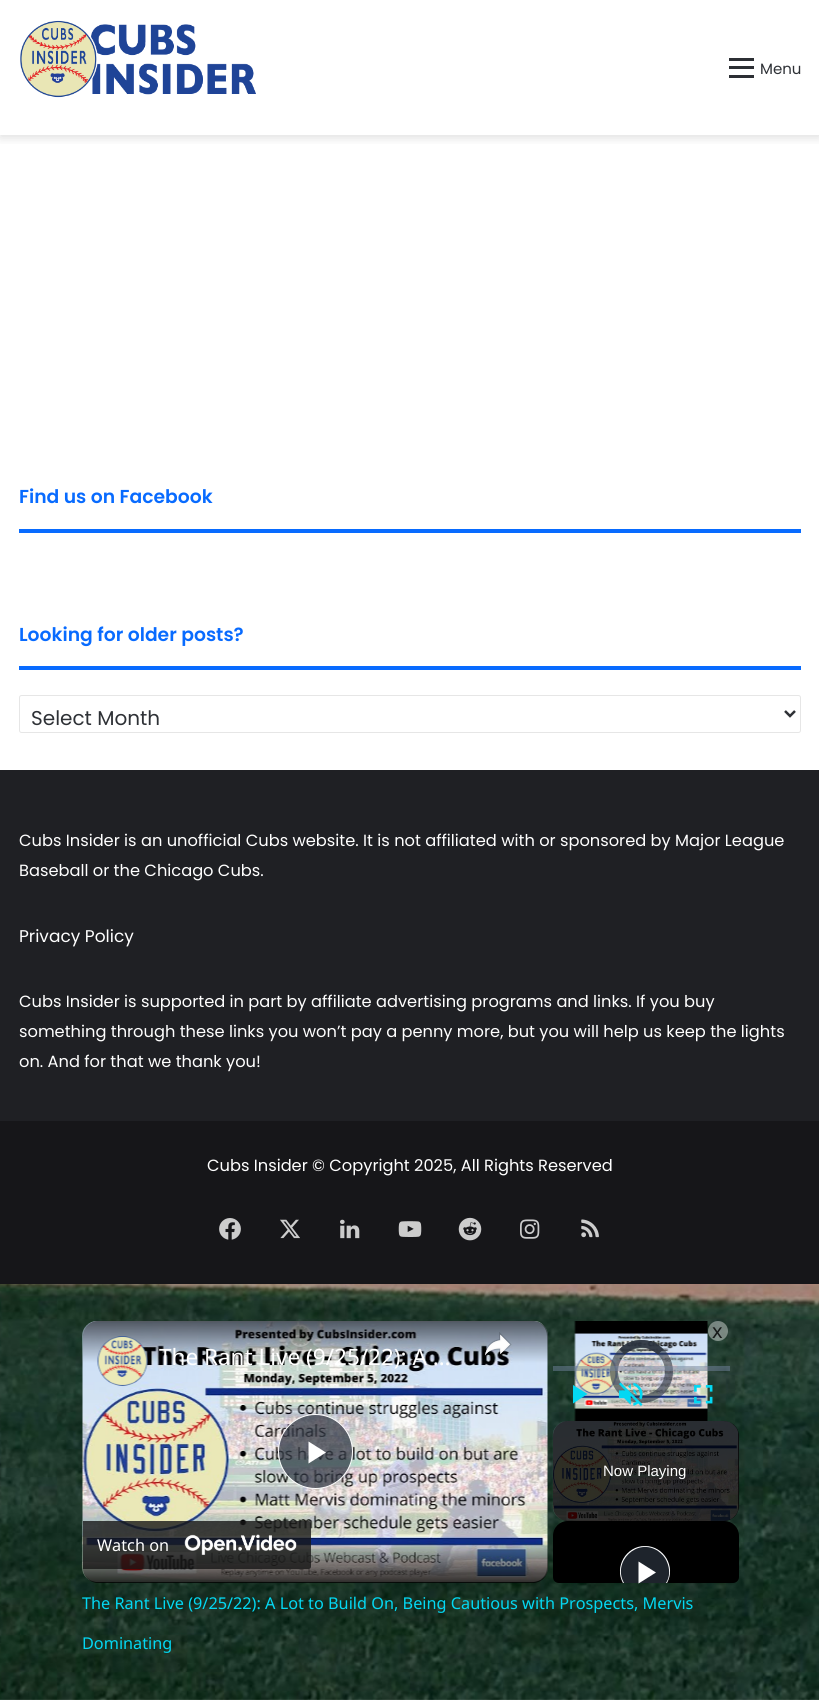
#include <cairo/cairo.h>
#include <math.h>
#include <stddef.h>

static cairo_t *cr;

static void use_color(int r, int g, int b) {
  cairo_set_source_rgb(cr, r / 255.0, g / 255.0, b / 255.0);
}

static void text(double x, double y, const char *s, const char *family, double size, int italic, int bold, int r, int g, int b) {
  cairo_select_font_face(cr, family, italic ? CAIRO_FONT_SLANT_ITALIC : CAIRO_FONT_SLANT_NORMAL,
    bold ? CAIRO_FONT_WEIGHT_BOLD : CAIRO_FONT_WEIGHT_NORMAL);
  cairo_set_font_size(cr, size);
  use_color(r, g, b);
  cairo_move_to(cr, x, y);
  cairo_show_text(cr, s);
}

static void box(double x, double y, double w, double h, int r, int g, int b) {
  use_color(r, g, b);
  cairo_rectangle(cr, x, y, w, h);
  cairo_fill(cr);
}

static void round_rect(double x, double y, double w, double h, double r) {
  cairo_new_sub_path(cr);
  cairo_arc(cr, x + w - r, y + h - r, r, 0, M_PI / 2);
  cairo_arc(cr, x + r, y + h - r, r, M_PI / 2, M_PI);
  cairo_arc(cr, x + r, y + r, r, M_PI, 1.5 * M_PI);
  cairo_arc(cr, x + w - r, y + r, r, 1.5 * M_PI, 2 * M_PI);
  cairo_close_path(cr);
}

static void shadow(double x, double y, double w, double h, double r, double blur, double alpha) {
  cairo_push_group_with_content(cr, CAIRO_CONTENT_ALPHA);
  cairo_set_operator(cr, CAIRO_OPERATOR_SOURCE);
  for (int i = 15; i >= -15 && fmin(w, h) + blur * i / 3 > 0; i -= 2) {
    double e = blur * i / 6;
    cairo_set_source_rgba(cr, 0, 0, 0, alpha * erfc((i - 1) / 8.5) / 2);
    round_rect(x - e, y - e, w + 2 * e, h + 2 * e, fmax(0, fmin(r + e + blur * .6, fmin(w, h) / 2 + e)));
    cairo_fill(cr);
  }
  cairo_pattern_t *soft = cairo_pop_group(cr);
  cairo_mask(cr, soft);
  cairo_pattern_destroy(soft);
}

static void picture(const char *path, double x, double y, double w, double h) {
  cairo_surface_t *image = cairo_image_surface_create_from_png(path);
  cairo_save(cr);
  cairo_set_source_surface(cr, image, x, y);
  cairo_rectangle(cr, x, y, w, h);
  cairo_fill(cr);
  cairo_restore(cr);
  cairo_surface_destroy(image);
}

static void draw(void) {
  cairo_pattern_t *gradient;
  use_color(255, 255, 255);
  cairo_paint(cr);
  picture("img_01.png", 0, 1284, 819, 416);
  cairo_save(cr);
  cairo_rectangle(cr, 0, 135, 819, 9);
  cairo_clip(cr);
  use_color(99, 99, 99);
  shadow(0, 3, 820, 135, 0, 5, 0.2);
  cairo_restore(cr);
  picture("img_02.png", 20, 20, 236, 78);
  box(729, 66, 25, 3, 44, 47, 52);
  box(729, 58, 25, 3, 44, 47, 52);
  box(729, 75, 25, 3, 44, 47, 52);
  box(19, 529, 782, 4, 8, 107, 255);
  box(19, 666, 782, 4, 8, 107, 255);
  round_rect(19.5, 695.5, 781, 37, 2);
  use_color(230, 230, 230);
  cairo_set_line_width(cr, 1);
  cairo_stroke(cr);
  cairo_new_path(cr);
  cairo_move_to(cr, 785, 711);
  cairo_line_to(cr, 790, 716);
  cairo_line_to(cr, 795, 711);
  use_color(46, 49, 54);
  cairo_set_line_width(cr, 2.5);
  cairo_stroke(cr);
  box(0, 770, 819, 351, 31, 32, 36);
  box(0, 1121, 819, 163, 22, 22, 25);
  picture("img_03.png", 219, 1218, 22, 22);
  picture("img_04.png", 280, 1219, 20, 20);
  picture("img_05.png", 340, 1219, 20, 20);
  picture("img_06.png", 398, 1221, 24, 16);
  picture("img_07.png", 458, 1217, 24, 24);
  picture("img_08.png", 520, 1219, 20, 20);
  picture("img_09.png", 581, 1219, 18, 19);
  picture("img_11.png", 141, 1582, 349, 1);
  cairo_set_source_rgba(cr, 1, 1, 1, 0.4);
  cairo_arc(cr, 535, 1331, 10, 0, 2 * M_PI);
  cairo_fill(cr);
  picture("img_10.png", 82, 1321, 466, 262);
  cairo_set_source_rgba(cr, 0.169, 0.2, 0.247, 0.7);
  cairo_arc(cr, 315.5, 1451.5, 37, 0, 2 * M_PI);
  cairo_fill_preserve(cr);
  use_color(255, 255, 255);
  cairo_set_line_width(cr, 1);
  cairo_stroke(cr);
  cairo_new_path(cr);
  cairo_move_to(cr, 308.5, 1441.5);
  cairo_line_to(cr, 308.5, 1463.5);
  cairo_line_to(cr, 326, 1452.5);
  cairo_close_path(cr);
  cairo_fill(cr);
  gradient = cairo_pattern_create_linear(315, 1321, 315, 1583);
  cairo_pattern_add_color_stop_rgba(gradient, 0, 0, 0, 0, 0.6);
  cairo_pattern_add_color_stop_rgba(gradient, 0.16, 0, 0, 0, 0);
  cairo_pattern_add_color_stop_rgba(gradient, 0.84, 0, 0, 0, 0);
  cairo_pattern_add_color_stop_rgba(gradient, 1, 0, 0, 0, 0.8);
  cairo_set_source(cr, gradient);
  cairo_pattern_destroy(gradient);
  round_rect(83, 1321, 465, 262, 15);
  cairo_fill(cr);
  picture("img_12.png", 97, 1336, 51, 50);
  picture("img_13.png", 485, 1332, 27, 24);
  cairo_set_source_rgba(cr, 0.09, 0.09, 0.09, 0.8);
  cairo_new_path(cr);
  cairo_move_to(cr, 83, 1521);
  cairo_line_to(cr, 308.5, 1521);
  cairo_curve_to(cr, 310, 1521, 311, 1522, 311, 1523.5);
  cairo_line_to(cr, 311, 1566.5);
  cairo_curve_to(cr, 311, 1568, 310, 1569, 308.5, 1569);
  cairo_line_to(cr, 83, 1569);
  cairo_close_path(cr);
  cairo_fill(cr);
  picture("img_14.png", 184, 1534, 113, 21);
  picture("img_15.png", 574, 1321, 134, 100);
  cairo_arc(cr, 641.5, 1371.5, 27.5, 0, 2 * M_PI);
  cairo_set_source_rgba(cr, 0.169, 0.2, 0.247, 0.59);
  cairo_set_line_width(cr, 8);
  cairo_stroke(cr);
  cairo_new_path(cr);
  cairo_move_to(cr, 622, 1352);
  cairo_curve_to(cr, 632.5, 1341, 650, 1341, 660.5, 1352);
  cairo_set_line_width(cr, 7.5);
  cairo_stroke(cr);
  cairo_new_path(cr);
  cairo_move_to(cr, 622, 1352);
  cairo_curve_to(cr, 632.5, 1341, 650, 1341, 660.5, 1352);
  cairo_stroke(cr);
  cairo_set_source_rgba(cr, 0.451, 0.522, 0.624, 0.5);
  cairo_rectangle(cr, 553, 1366, 177, 5);
  cairo_fill(cr);
  use_color(3, 216, 243);
  cairo_new_path(cr);
  cairo_move_to(cr, 573, 1385);
  cairo_line_to(cr, 573, 1403.5);
  cairo_line_to(cr, 587.5, 1394);
  cairo_close_path(cr);
  cairo_fill(cr);
  picture("img_16.png", 618, 1382, 25, 24);
  picture("img_17.png", 694, 1385, 19, 19);
  cairo_set_source_rgba(cr, 1, 1, 1, 0.4);
  cairo_arc(cr, 718, 1331, 10, 0, 2 * M_PI);
  cairo_fill(cr);
  use_color(0, 0, 0);
  round_rect(553, 1421, 186, 100, 15);
  cairo_fill(cr);
  picture("img_18.png", 552, 1421, 187, 100);
  cairo_save(cr);
  round_rect(548, 1321, 191, 262, 6);
  cairo_clip(cr);
  cairo_new_path(cr);
  cairo_move_to(cr, 568, 1521);
  cairo_line_to(cr, 724, 1521);
  cairo_curve_to(cr, 732.5, 1521, 739, 1527.5, 739, 1536);
  cairo_line_to(cr, 739, 1577);
  cairo_curve_to(cr, 739, 1580.5, 736.5, 1583, 733, 1583);
  cairo_line_to(cr, 559, 1583);
  cairo_curve_to(cr, 555.5, 1583, 553, 1580.5, 553, 1577);
  cairo_line_to(cr, 553, 1536);
  cairo_curve_to(cr, 553, 1527.5, 559.5, 1521, 568, 1521);
  cairo_close_path(cr);
  cairo_fill(cr);
  cairo_restore(cr);
  cairo_save(cr);
  cairo_rectangle(cr, 553, 1421, 186, 162);
  cairo_clip(cr);
  use_color(30, 36, 44);
  cairo_arc(cr, 645, 1571, 25, 0, 2 * M_PI);
  cairo_fill(cr);
  cairo_restore(cr);
  use_color(255, 255, 255);
  cairo_new_path(cr);
  cairo_move_to(cr, 645, 1546);
  cairo_curve_to(cr, 664, 1546, 676, 1567, 667, 1583);
  cairo_line_to(cr, 666, 1583);
  cairo_curve_to(cr, 670, 1577, 670, 1569, 667, 1562);
  cairo_curve_to(cr, 665, 1557, 662, 1554, 658, 1551);
  cairo_curve_to(cr, 637, 1537, 612, 1562, 624, 1583);
  cairo_line_to(cr, 623, 1583);
  cairo_curve_to(cr, 614, 1567, 626, 1546, 645, 1546);
  cairo_close_path(cr);
  cairo_fill(cr);
  cairo_new_path(cr);
  cairo_move_to(cr, 638.5, 1561.5);
  cairo_line_to(cr, 638.5, 1583.5);
  cairo_line_to(cr, 656, 1572.5);
  cairo_close_path(cr);
  cairo_fill(cr);
  text(760, 74, "Menu", "Poppins", 15, 0, 0, 46, 49, 54);
  text(19, 503, "Find us on Facebook", "Poppins SemiBold", 18.75, 0, 0, 8, 107, 255);
  text(19, 641, "Looking for older posts?", "Poppins SemiBold", 18.75, 0, 0, 8, 107, 255);
  text(31, 725, "Select Month", "Poppins", 20, 0, 0, 46, 49, 54);
  text(19, 846, "Cubs Insider is an unofficial Cubs website. It is not affiliated with or sponsored by Major League", "Poppins", 16.25, 0, 0, 255, 255, 255);
  text(19, 876, "Baseball or the Chicago Cubs.", "Poppins", 16.25, 0, 0, 255, 255, 255);
  text(19, 942, "Privacy Policy", "Poppins", 17, 0, 0, 255, 255, 255);
  text(19, 1007, "Cubs Insider is supported in part by affiliate advertising programs and links. If you buy", "Poppins", 16.25, 0, 0, 255, 255, 255);
  text(19, 1037, "something through these links you won’t pay a penny more, but you will help us keep the lights", "Poppins", 16.25, 0, 0, 255, 255, 255);
  text(19, 1067, "on. And for that we thank you!", "Poppins", 16.25, 0, 0, 255, 255, 255);
  text(207, 1171, "Cubs Insider © Copyright 2025, All Rights Reserved", "Poppins", 16.25, 0, 0, 255, 255, 255);
  text(159, 1365, "The Rant Live (9/25/22): A …", "Noto Sans", 22.5, 0, 0, 255, 255, 255);
  text(97, 1551, "Watch on", "Noto Sans", 16.25, 0, 0, 255, 255, 255);
  text(712, 1338, "x", "Noto Sans", 20, 0, 0, 24, 27, 26);
  text(603, 1476, "Now Playing", "Liberation Sans", 15, 0, 0, 255, 255, 255);
  text(82, 1609, "The Rant Live (9/25/22): A Lot to Build On, Being Cautious with Prospects, Mervis", "Noto Sans", 16.25, 0, 0, 3, 216, 243);
  text(82, 1649, "Dominating", "Noto Sans", 16.25, 0, 0, 3, 216, 243);
}

int main(void) {
  cairo_surface_t *surface = cairo_image_surface_create(CAIRO_FORMAT_RGB24, 819, 1700);
  cr = cairo_create(surface);
  cairo_font_options_t *options = cairo_font_options_create();
  cairo_font_options_set_hint_metrics(options, CAIRO_HINT_METRICS_OFF);
  cairo_font_options_set_hint_style(options, CAIRO_HINT_STYLE_NONE);
  cairo_set_font_options(cr, options);
  cairo_set_miter_limit(cr, 4);
  draw();
  cairo_surface_write_to_png(surface, "out.png");
  cairo_font_options_destroy(options);
  cairo_destroy(cr);
  cairo_surface_destroy(surface);
  return 0;
}
